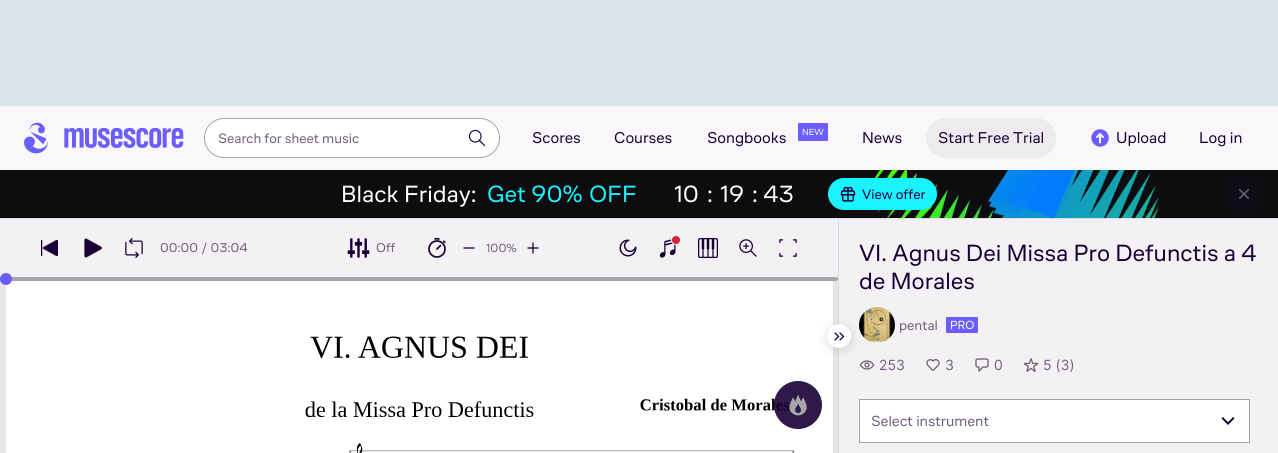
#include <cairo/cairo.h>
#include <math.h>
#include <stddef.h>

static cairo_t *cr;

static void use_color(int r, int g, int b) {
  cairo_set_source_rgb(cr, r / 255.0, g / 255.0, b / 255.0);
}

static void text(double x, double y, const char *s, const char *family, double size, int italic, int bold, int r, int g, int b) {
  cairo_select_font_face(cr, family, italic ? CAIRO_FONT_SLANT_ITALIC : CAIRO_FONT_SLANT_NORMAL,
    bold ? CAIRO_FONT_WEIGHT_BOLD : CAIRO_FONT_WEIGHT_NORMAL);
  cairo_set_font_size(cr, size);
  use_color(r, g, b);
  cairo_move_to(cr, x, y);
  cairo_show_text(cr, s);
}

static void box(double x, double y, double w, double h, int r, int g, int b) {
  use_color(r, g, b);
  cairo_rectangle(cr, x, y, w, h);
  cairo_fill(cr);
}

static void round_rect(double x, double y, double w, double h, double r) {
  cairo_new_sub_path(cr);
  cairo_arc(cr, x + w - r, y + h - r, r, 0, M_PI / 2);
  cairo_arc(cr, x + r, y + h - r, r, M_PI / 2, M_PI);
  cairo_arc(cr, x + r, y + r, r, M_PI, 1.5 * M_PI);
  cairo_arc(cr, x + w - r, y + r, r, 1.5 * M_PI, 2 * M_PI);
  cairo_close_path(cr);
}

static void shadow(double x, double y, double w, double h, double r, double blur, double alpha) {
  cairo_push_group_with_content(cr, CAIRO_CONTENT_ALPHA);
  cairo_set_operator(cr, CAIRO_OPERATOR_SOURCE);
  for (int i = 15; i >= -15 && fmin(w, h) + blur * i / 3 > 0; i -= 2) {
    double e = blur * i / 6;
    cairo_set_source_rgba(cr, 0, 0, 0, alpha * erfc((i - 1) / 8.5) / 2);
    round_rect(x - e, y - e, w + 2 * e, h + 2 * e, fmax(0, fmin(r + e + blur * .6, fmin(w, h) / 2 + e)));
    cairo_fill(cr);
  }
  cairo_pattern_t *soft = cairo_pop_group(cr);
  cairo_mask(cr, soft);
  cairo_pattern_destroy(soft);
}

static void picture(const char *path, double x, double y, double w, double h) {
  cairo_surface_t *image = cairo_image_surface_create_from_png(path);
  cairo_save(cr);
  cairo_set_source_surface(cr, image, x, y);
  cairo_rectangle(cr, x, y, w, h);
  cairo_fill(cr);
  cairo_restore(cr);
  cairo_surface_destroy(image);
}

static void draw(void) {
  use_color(249, 247, 250);
  cairo_paint(cr);
  box(0, 218, 1278, 1, 226, 222, 230);
  box(0, 0, 1278, 106, 218, 227, 233);
  picture("img_01.png", 24, 122, 160, 32);
  use_color(255, 255, 255);
  round_rect(204.5, 118.5, 295, 39, 19.5);
  cairo_fill_preserve(cr);
  use_color(167, 164, 169);
  cairo_set_line_width(cr, 1);
  cairo_stroke(cr);
  picture("img_02.png", 468, 129, 17, 18);
  use_color(107, 93, 254);
  round_rect(798, 123, 30, 18, 1);
  cairo_fill(cr);
  use_color(237, 235, 238);
  round_rect(926, 118, 130, 40, 20);
  cairo_fill(cr);
  picture("img_03.png", 1091, 129, 18, 18);
  box(0, 170, 1278, 48, 13, 13, 16);
  picture("img_04.png", 874, 170, 285, 48);
  use_color(25, 243, 255);
  round_rect(828, 178, 109, 32, 16);
  cairo_fill(cr);
  picture("img_05.png", 840, 186, 16, 16);
  use_color(14, 12, 20);
  cairo_arc(cr, 1244, 194, 18, 0, 2 * M_PI);
  cairo_fill(cr);
  picture("img_06.png", 1239, 189, 10, 10);
  box(0, 277, 838, 176, 231, 229, 232);
  use_color(167, 164, 169);
  round_rect(0, 277, 838, 4, 2);
  cairo_fill(cr);
  box(0, 219, 838, 58, 243, 241, 244);
  box(6, 281, 827, 172, 255, 255, 255);
  use_color(107, 93, 254);
  cairo_arc(cr, 6, 279, 6, 0, 2 * M_PI);
  cairo_fill(cr);
  picture("img_07.png", 41, 239, 17, 18);
  picture("img_08.png", 84, 238, 18, 20);
  picture("img_09.png", 125, 238, 18, 20);
  picture("img_10.png", 347, 238, 23, 20);
  picture("img_11.png", 428, 237, 18, 21);
  picture("img_12.png", 463, 247, 12, 2);
  picture("img_13.png", 527, 242, 12, 12);
  picture("img_14.png", 619, 239, 18, 18);
  picture("img_15.png", 659, 239, 17, 19);
  use_color(211, 33, 57);
  cairo_arc(cr, 676, 240, 4.5, 0, 2 * M_PI);
  cairo_fill_preserve(cr);
  use_color(249, 247, 250);
  cairo_stroke(cr);
  picture("img_16.png", 698, 238, 20, 20);
  picture("img_17.png", 739, 239, 18, 18);
  picture("img_18.png", 779, 239, 18, 18);
  picture("img_19.png", 305, 336, 489, 117);
  cairo_set_source_rgba(cr, 0.094, 0, 0.212, 0.9);
  cairo_arc(cr, 798, 405, 24, 0, 2 * M_PI);
  cairo_fill(cr);
  picture("img_20.png", 789, 394, 18, 22);
  box(839, 219, 439, 234, 243, 241, 244);
  box(838, 219, 1, 234, 221, 217, 225);
  picture("img_22.png", 859, 307, 36, 36);
  picture("img_23.png", 859, 360, 16, 10);
  use_color(0, 0, 0);
  shadow(827, 326, 24, 24, 12, 5, 0.14);
  use_color(255, 255, 255);
  cairo_arc(cr, 839, 336, 12, 0, 2 * M_PI);
  cairo_fill(cr);
  picture("img_21.png", 834, 332, 11, 9);
  use_color(107, 93, 254);
  round_rect(946, 317, 32, 16, 1);
  cairo_fill(cr);
  picture("img_24.png", 926, 359, 14, 12);
  picture("img_25.png", 975, 358, 14, 14);
  picture("img_26.png", 1023, 358, 16, 14);
  use_color(255, 255, 255);
  cairo_rectangle(cr, 859.5, 399.5, 390, 43);
  cairo_fill_preserve(cr);
  use_color(167, 164, 169);
  cairo_stroke(cr);
  picture("img_27.png", 1221, 417, 14, 8);
  text(218, 143, "Search for sheet music", "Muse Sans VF", 14, 0, 0, 110, 95, 121);
  text(532, 143, "Scores", "Muse Sans VF", 16, 0, 0, 24, 0, 54);
  text(614, 143, "Courses", "Muse Sans VF", 16, 0, 0, 24, 0, 54);
  text(707, 143, "Songbooks", "Muse Sans VF", 16, 0, 0, 24, 0, 54);
  text(802, 135, "NEW", "Muse Sans VF", 9, 0, 0, 255, 255, 255);
  text(862, 143, "News", "Muse Sans VF", 16, 0, 0, 24, 0, 54);
  text(938, 143, "Start Free Trial", "Muse Sans VF", 16, 0, 0, 24, 0, 54);
  text(1116, 143, "Upload", "Muse Sans VF", 16, 0, 0, 24, 0, 54);
  text(1199, 143, "Log in", "Muse Sans VF", 16, 0, 0, 24, 0, 54);
  text(341, 202, "Black", "Muse Sans VF", 24, 0, 0, 255, 255, 255);
  text(404, 202, "Friday:", "Muse Sans VF", 24, 0, 0, 255, 255, 255);
  text(487, 202, "Get", "Muse Sans VF", 24, 0, 0, 25, 243, 255);
  text(531, 202, "90%", "Muse Sans VF", 24, 0, 0, 25, 243, 255);
  text(589, 202, "OFF", "Muse Sans VF", 24, 0, 0, 25, 243, 255);
  text(674, 202, "10", "Muse Sans VF", 24, 0, 0, 255, 255, 255);
  text(707, 202, ":", "Muse Sans VF", 24, 0, 0, 255, 255, 255);
  text(720, 202, "19", "Muse Sans VF", 24, 0, 0, 255, 255, 255);
  text(752, 202, ":", "Muse Sans VF", 24, 0, 0, 255, 255, 255);
  text(763, 202, "43", "Muse Sans VF", 24, 0, 0, 255, 255, 255);
  text(862, 199, "View offer", "Muse Sans VF", 14, 0, 0, 24, 0, 54);
  text(160, 252, "00:00 / 03:04", "Muse Sans VF", 13, 0, 0, 110, 95, 121);
  text(376, 252, "Off", "Muse Sans VF", 13, 0, 0, 110, 95, 121);
  text(486, 252, "100%", "Muse Sans VF", 12, 0, 0, 110, 95, 121);
  text(859, 261, "VI. Agnus Dei Missa Pro Defunctis a 4", "Muse Sans VF", 24, 0, 0, 24, 0, 54);
  text(859, 289, "de Morales", "Muse Sans VF", 24, 0, 0, 24, 0, 54);
  text(899, 330, "pental", "Muse Sans VF", 14, 0, 0, 110, 95, 121);
  text(950, 329, "PRO", "Muse Sans VF", 12, 0, 0, 255, 255, 255);
  text(879, 370, "253", "Inter", 14, 0, 0, 110, 95, 121);
  text(945, 370, "3", "Inter", 14, 0, 0, 110, 95, 121);
  text(994, 370, "0", "Inter", 14, 0, 0, 110, 95, 121);
  text(1043, 370, "5 (3)", "Inter", 14, 0, 0, 110, 95, 121);
  text(871, 426, "Select instrument", "Muse Sans VF", 15, 0, 0, 110, 95, 121);
}

int main(void) {
  cairo_surface_t *surface = cairo_image_surface_create(CAIRO_FORMAT_RGB24, 1278, 453);
  cr = cairo_create(surface);
  cairo_font_options_t *options = cairo_font_options_create();
  cairo_font_options_set_hint_metrics(options, CAIRO_HINT_METRICS_OFF);
  cairo_font_options_set_hint_style(options, CAIRO_HINT_STYLE_NONE);
  cairo_set_font_options(cr, options);
  cairo_set_miter_limit(cr, 4);
  draw();
  cairo_surface_write_to_png(surface, "out.png");
  cairo_font_options_destroy(options);
  cairo_destroy(cr);
  cairo_surface_destroy(surface);
  return 0;
}
